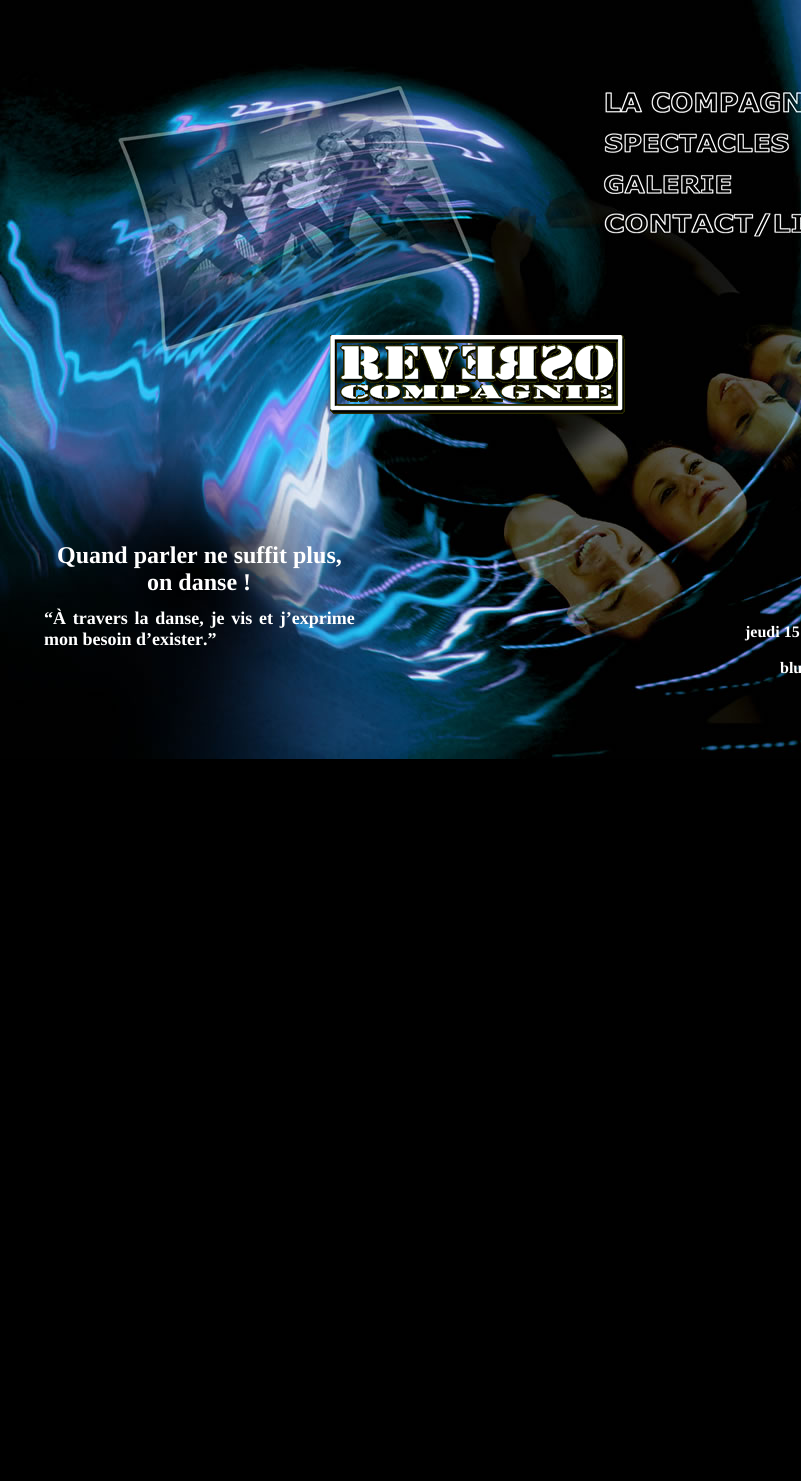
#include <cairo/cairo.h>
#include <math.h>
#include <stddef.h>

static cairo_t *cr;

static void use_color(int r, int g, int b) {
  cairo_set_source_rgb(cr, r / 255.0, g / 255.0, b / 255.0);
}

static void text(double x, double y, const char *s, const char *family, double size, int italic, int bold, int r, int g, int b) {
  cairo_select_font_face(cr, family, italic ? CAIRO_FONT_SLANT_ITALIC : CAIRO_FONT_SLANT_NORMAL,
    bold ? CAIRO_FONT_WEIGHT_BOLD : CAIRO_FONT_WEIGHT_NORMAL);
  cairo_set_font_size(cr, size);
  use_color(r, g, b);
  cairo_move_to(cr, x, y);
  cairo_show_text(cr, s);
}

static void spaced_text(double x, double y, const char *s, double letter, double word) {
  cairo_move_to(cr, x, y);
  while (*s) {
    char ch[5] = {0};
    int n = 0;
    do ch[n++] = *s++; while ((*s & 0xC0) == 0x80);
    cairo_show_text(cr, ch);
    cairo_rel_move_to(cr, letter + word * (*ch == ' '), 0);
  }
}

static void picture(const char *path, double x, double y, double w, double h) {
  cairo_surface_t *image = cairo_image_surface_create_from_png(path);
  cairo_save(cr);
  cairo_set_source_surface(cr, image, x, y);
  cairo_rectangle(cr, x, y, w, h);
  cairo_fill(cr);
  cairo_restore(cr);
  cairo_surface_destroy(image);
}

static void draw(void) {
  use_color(0, 0, 0);
  cairo_paint(cr);
  picture("img_01.png", 0, 0, 801, 759);
  picture("img_02.png", 330, 335, 295, 79);
  text(57, 563, "Quand parler ne suffit plus,", "Liberation Serif", 24, 0, 1, 255, 255, 255);
  text(147, 590, "on danse !", "Liberation Serif", 24, 0, 1, 255, 255, 255);
  cairo_set_font_size(cr, 18);
  spaced_text(44, 624, "“À travers la danse, je vis et j’exprime", 0, 2.25);
  text(44, 645, "mon besoin d’exister.”", "Liberation Serif", 18, 0, 1, 255, 255, 255);
  text(745, 637, "jeudi 15", "Liberation Serif", 16, 0, 1, 255, 255, 255);
  text(780, 673, "blu", "Liberation Serif", 16, 0, 1, 255, 255, 255);
}

int main(void) {
  cairo_surface_t *surface = cairo_image_surface_create(CAIRO_FORMAT_RGB24, 801, 1481);
  cr = cairo_create(surface);
  cairo_font_options_t *options = cairo_font_options_create();
  cairo_font_options_set_hint_metrics(options, CAIRO_HINT_METRICS_OFF);
  cairo_font_options_set_hint_style(options, CAIRO_HINT_STYLE_NONE);
  cairo_set_font_options(cr, options);
  cairo_set_miter_limit(cr, 4);
  draw();
  cairo_surface_write_to_png(surface, "out.png");
  cairo_font_options_destroy(options);
  cairo_destroy(cr);
  cairo_surface_destroy(surface);
  return 0;
}
